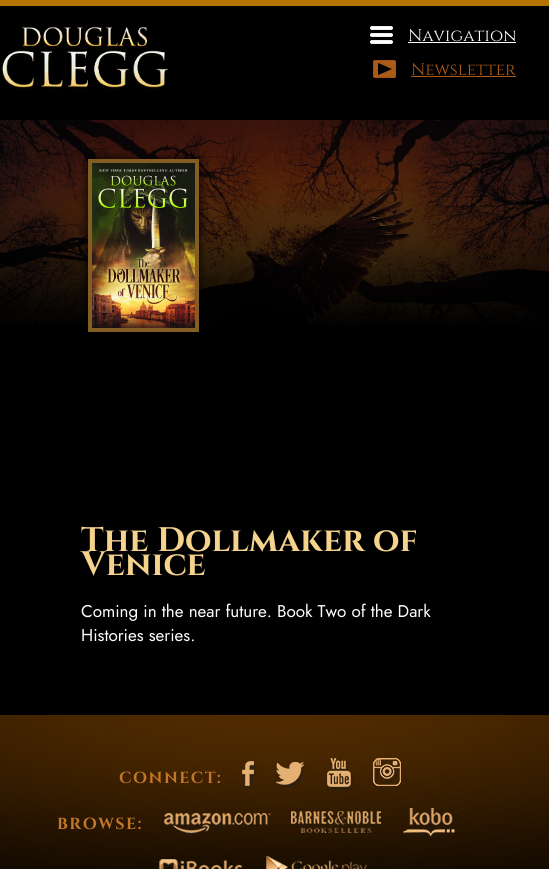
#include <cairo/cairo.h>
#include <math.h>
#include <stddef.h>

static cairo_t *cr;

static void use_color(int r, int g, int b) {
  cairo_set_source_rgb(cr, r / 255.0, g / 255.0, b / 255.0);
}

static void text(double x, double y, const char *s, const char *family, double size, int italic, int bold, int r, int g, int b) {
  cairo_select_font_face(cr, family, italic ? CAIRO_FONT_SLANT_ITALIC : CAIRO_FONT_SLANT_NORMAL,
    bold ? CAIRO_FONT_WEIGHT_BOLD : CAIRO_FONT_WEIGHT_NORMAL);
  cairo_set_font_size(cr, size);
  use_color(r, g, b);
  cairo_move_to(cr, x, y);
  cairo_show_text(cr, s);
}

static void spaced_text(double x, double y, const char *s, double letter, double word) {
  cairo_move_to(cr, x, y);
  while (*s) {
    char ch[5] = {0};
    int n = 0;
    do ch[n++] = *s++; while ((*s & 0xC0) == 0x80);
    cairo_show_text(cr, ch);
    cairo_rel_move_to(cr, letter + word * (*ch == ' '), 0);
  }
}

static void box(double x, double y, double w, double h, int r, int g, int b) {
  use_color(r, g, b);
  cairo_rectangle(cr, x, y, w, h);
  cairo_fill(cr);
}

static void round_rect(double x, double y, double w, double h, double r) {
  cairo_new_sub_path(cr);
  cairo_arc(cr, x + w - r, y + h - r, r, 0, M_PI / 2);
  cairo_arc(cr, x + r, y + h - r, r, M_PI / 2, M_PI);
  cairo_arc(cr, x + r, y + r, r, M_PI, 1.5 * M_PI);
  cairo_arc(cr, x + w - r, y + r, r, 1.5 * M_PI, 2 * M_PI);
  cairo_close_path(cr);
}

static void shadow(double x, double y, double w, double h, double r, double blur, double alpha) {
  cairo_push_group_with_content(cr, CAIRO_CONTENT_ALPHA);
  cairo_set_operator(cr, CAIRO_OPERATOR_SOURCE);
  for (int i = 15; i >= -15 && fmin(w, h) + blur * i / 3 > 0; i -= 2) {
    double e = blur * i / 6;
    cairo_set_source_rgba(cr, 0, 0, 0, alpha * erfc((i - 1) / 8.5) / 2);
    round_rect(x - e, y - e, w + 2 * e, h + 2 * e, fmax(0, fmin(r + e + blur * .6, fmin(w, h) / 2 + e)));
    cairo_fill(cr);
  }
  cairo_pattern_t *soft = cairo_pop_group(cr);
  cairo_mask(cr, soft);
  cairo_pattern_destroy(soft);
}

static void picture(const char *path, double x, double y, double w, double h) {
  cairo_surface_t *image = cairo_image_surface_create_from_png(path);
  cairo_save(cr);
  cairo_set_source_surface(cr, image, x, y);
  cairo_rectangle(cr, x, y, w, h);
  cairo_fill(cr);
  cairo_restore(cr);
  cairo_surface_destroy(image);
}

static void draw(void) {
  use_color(0, 0, 0);
  cairo_paint(cr);
  picture("img_01.png", 0, 120, 549, 205);
  box(0, 0, 549, 6, 180, 116, 0);
  picture("img_02.png", 2, 26, 166, 64);
  picture("img_03.png", 370, 26, 23, 18);
  box(408, 42, 108, 1, 255, 255, 255);
  picture("img_04.png", 373, 60, 23, 18);
  box(411, 76, 105, 1, 171, 91, 22);
  use_color(0, 0, 0);
  shadow(88, 159, 111, 173, 0, 5, 1);
  cairo_rectangle(cr, 90, 161, 107, 169);
  use_color(131, 93, 33);
  cairo_set_line_width(cr, 4);
  cairo_stroke(cr);
  picture("img_05.png", 92, 163, 103, 165);
  picture("img_06.png", 0, 715, 549, 154);
  picture("img_07.png", 241, 761, 16, 28);
  picture("img_08.png", 275, 762, 31, 27);
  picture("img_09.png", 326, 758, 28, 33);
  picture("img_10.png", 372, 758, 32, 31);
  picture("img_11.png", 164, 813, 107, 24);
  picture("img_12.png", 290, 811, 93, 24);
  picture("img_13.png", 403, 808, 54, 30);
  picture("img_14.png", 158, 859, 85, 10);
  picture("img_15.png", 265, 856, 102, 13);
  text(408, 41, "Navigation", "Cinzel", 17, 0, 0, 255, 255, 255);
  text(411, 75, "Newsletter", "Cinzel", 17, 0, 0, 171, 91, 22);
  text(81, 551, "The Dollmaker of", "Cinzel", 34, 0, 1, 245, 211, 141);
  text(81, 575, "Venice", "Cinzel", 34, 0, 1, 245, 211, 141);
  text(81, 617, "Coming in the near future. Book Two of the Dark", "Jost", 17, 0, 0, 255, 255, 255);
  text(81, 641, "Histories series.", "Jost", 17, 0, 0, 255, 255, 255);
  cairo_select_font_face(cr, "Cinzel", CAIRO_FONT_SLANT_NORMAL, CAIRO_FONT_WEIGHT_BOLD);
  cairo_set_font_size(cr, 16);
  use_color(196, 119, 41);
  spaced_text(119, 783, "CONNECT:", 1.5, 0);
  spaced_text(57, 829, "BROWSE:", 1.5, 0);
}

int main(void) {
  cairo_surface_t *surface = cairo_image_surface_create(CAIRO_FORMAT_RGB24, 549, 869);
  cr = cairo_create(surface);
  cairo_font_options_t *options = cairo_font_options_create();
  cairo_font_options_set_hint_metrics(options, CAIRO_HINT_METRICS_OFF);
  cairo_font_options_set_hint_style(options, CAIRO_HINT_STYLE_NONE);
  cairo_set_font_options(cr, options);
  cairo_set_miter_limit(cr, 4);
  draw();
  cairo_surface_write_to_png(surface, "out.png");
  cairo_font_options_destroy(options);
  cairo_destroy(cr);
  cairo_surface_destroy(surface);
  return 0;
}
